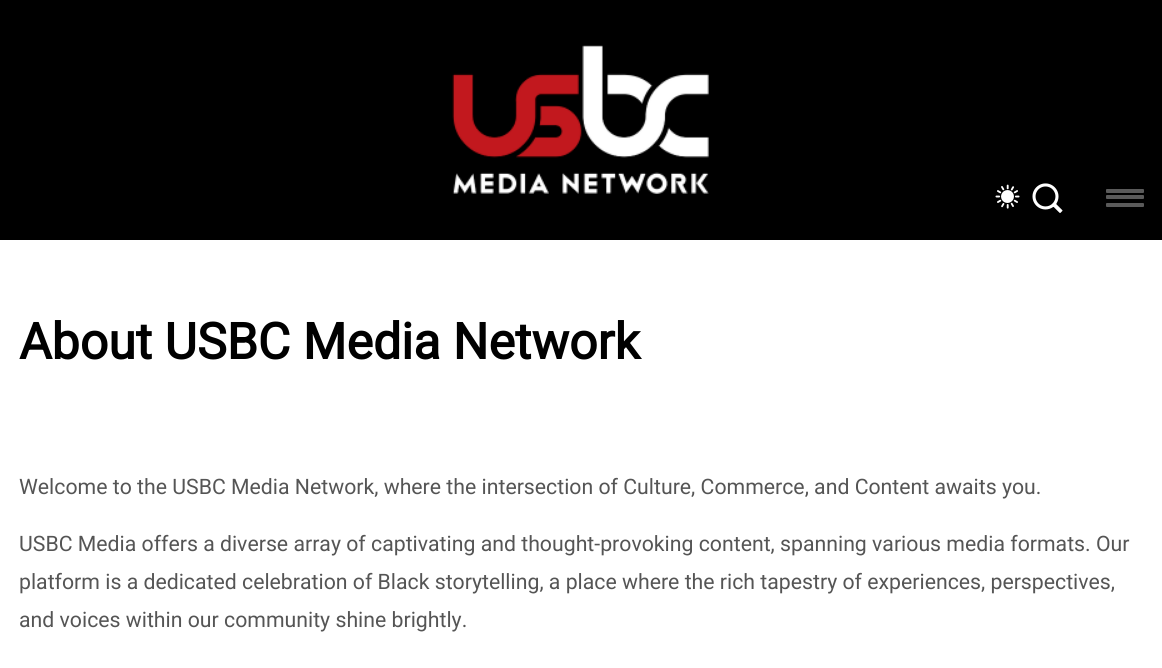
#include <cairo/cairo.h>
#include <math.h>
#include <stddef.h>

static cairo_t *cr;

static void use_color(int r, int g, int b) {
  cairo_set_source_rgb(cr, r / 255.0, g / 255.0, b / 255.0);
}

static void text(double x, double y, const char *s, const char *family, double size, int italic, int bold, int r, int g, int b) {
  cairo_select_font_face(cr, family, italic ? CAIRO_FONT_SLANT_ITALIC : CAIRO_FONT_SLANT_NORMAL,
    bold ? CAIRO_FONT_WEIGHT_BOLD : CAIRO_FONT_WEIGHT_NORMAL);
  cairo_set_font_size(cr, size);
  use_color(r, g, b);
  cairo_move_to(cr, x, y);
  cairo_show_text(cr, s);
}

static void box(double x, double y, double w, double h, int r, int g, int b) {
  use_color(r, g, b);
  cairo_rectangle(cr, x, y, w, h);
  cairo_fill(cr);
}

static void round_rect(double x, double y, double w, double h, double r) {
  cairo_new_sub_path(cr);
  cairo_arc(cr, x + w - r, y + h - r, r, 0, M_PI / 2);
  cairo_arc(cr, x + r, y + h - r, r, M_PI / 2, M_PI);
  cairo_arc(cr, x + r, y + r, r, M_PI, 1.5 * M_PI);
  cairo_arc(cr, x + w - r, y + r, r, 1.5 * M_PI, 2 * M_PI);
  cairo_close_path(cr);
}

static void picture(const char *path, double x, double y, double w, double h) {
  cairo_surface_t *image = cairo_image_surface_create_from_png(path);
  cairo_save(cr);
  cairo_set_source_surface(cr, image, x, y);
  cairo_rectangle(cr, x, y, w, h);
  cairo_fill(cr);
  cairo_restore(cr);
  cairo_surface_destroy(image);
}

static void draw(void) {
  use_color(255, 255, 255);
  cairo_paint(cr);
  box(0, 0, 1162, 240, 0, 0, 0);
  picture("img_01.png", 452, 45, 257, 149);
  picture("img_02.png", 995, 184, 25, 25);
  picture("img_03.png", 1032, 183, 31, 30);
  use_color(90, 90, 90);
  round_rect(1106, 189, 38, 4, 1);
  cairo_fill(cr);
  round_rect(1106, 195, 38, 4, 1);
  cairo_fill(cr);
  round_rect(1106, 203, 38, 4, 1);
  cairo_fill(cr);
  text(19, 359, "About USBC Media Network", "Roboto", 50, 0, 1, 0, 0, 0);
  text(19, 494, "Welcome to the USBC Media Network, where the intersection of Culture, Commerce, and Content awaits you.", "Roboto", 21.25, 0, 0, 85, 85, 85);
  text(19, 551, "USBC Media offers a diverse array of captivating and thought-provoking content, spanning various media formats. Our", "Roboto", 21.25, 0, 0, 85, 85, 85);
  text(19, 589, "platform is a dedicated celebration of Black storytelling, a place where the rich tapestry of experiences, perspectives,", "Roboto", 21.25, 0, 0, 85, 85, 85);
  text(19, 627, "and voices within our community shine brightly.", "Roboto", 21.25, 0, 0, 85, 85, 85);
}

int main(void) {
  cairo_surface_t *surface = cairo_image_surface_create(CAIRO_FORMAT_RGB24, 1162, 668);
  cr = cairo_create(surface);
  cairo_font_options_t *options = cairo_font_options_create();
  cairo_font_options_set_hint_metrics(options, CAIRO_HINT_METRICS_OFF);
  cairo_font_options_set_hint_style(options, CAIRO_HINT_STYLE_NONE);
  cairo_set_font_options(cr, options);
  cairo_set_miter_limit(cr, 4);
  draw();
  cairo_surface_write_to_png(surface, "out.png");
  cairo_font_options_destroy(options);
  cairo_destroy(cr);
  cairo_surface_destroy(surface);
  return 0;
}
